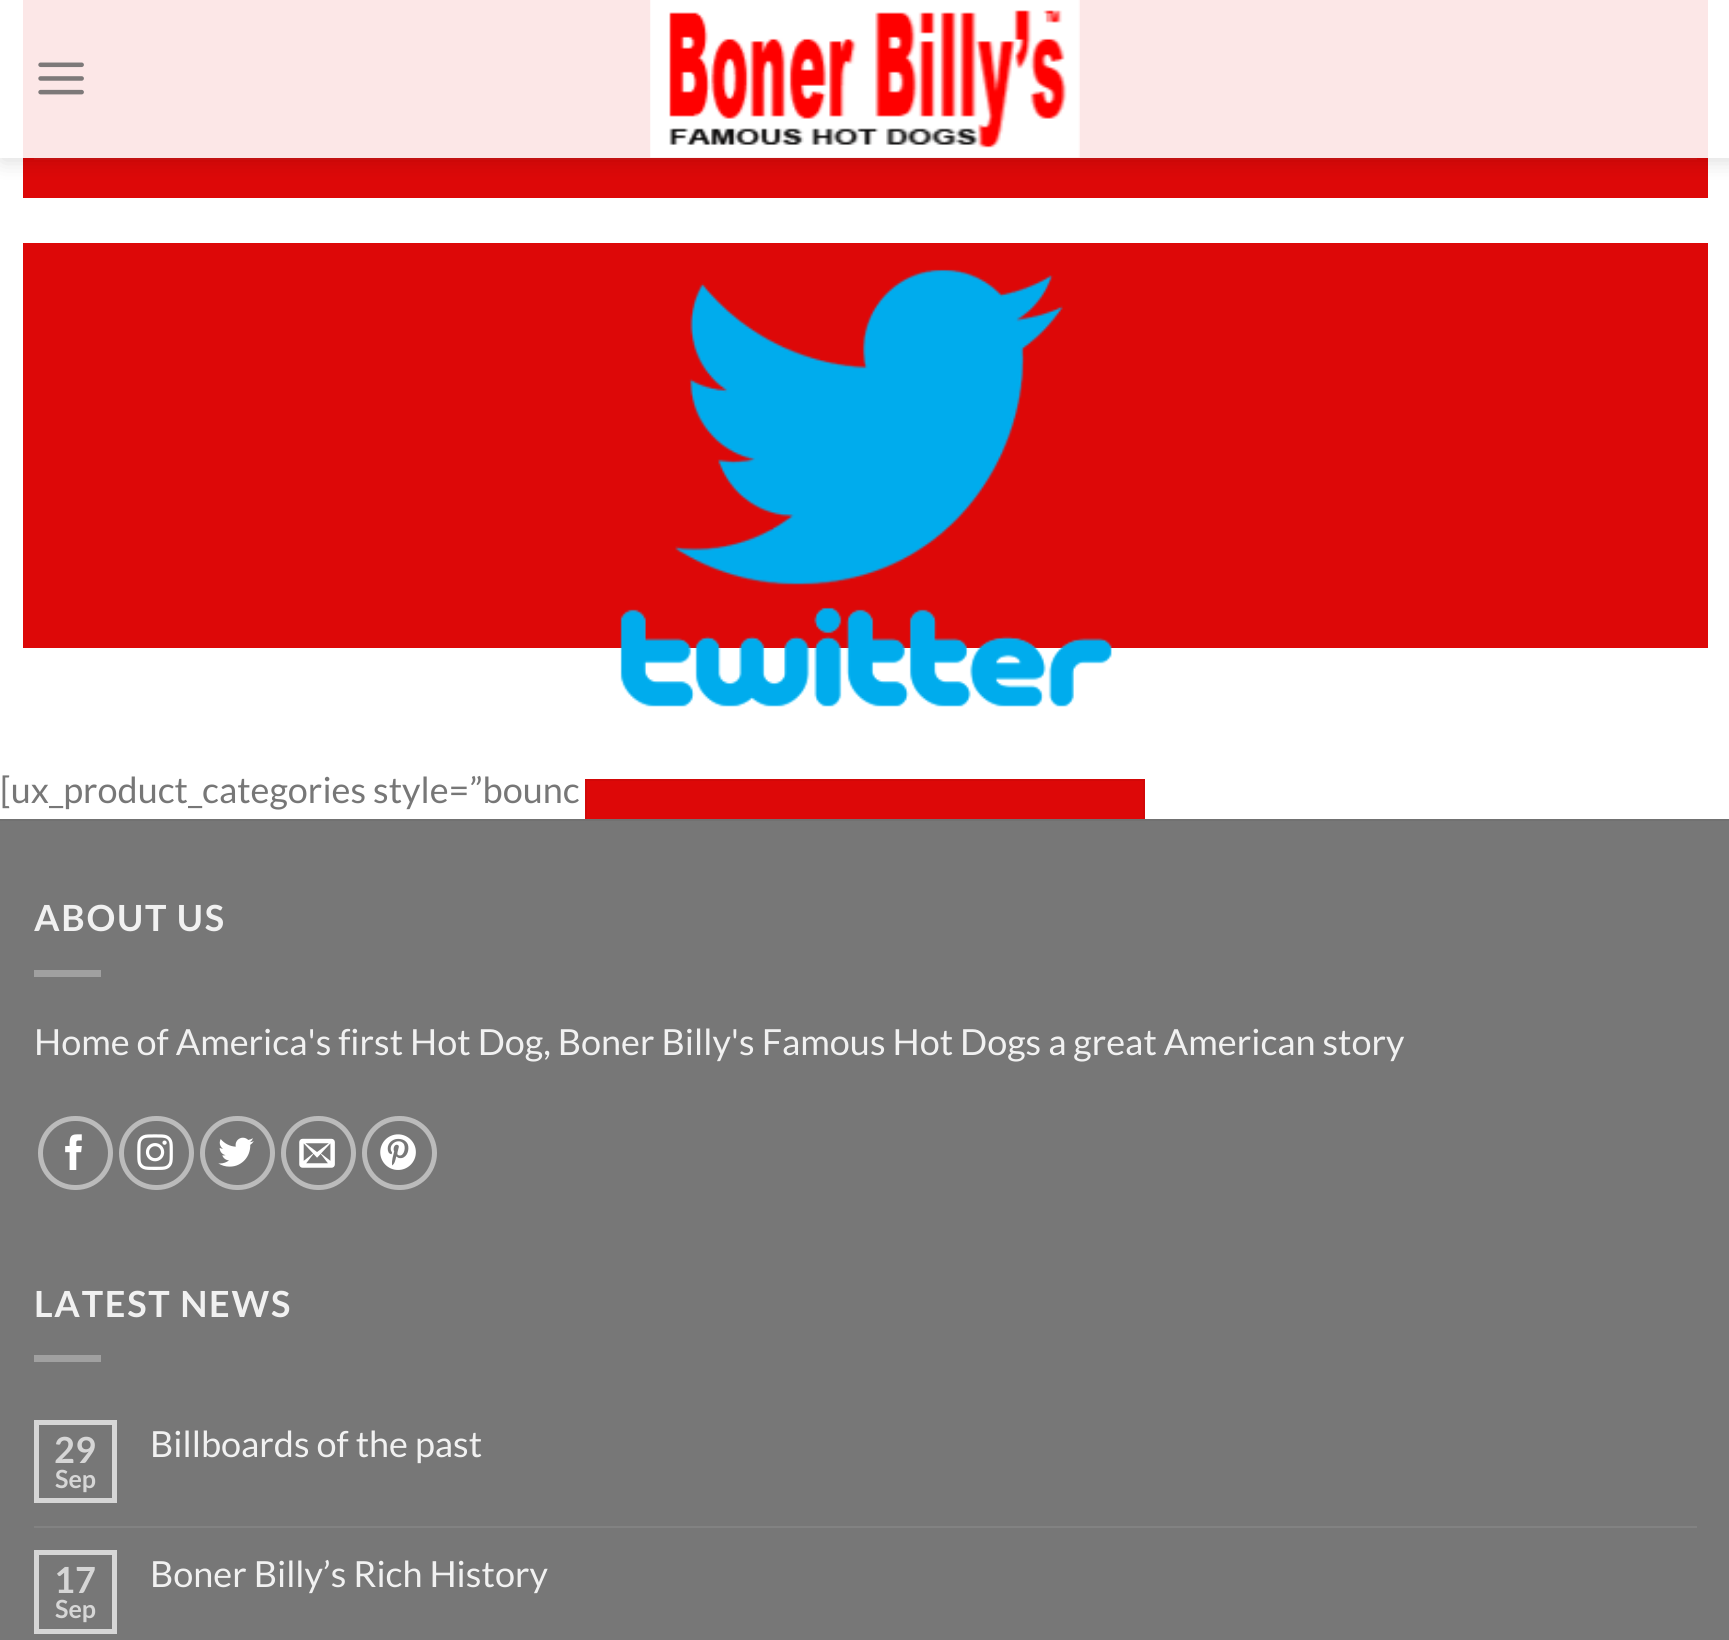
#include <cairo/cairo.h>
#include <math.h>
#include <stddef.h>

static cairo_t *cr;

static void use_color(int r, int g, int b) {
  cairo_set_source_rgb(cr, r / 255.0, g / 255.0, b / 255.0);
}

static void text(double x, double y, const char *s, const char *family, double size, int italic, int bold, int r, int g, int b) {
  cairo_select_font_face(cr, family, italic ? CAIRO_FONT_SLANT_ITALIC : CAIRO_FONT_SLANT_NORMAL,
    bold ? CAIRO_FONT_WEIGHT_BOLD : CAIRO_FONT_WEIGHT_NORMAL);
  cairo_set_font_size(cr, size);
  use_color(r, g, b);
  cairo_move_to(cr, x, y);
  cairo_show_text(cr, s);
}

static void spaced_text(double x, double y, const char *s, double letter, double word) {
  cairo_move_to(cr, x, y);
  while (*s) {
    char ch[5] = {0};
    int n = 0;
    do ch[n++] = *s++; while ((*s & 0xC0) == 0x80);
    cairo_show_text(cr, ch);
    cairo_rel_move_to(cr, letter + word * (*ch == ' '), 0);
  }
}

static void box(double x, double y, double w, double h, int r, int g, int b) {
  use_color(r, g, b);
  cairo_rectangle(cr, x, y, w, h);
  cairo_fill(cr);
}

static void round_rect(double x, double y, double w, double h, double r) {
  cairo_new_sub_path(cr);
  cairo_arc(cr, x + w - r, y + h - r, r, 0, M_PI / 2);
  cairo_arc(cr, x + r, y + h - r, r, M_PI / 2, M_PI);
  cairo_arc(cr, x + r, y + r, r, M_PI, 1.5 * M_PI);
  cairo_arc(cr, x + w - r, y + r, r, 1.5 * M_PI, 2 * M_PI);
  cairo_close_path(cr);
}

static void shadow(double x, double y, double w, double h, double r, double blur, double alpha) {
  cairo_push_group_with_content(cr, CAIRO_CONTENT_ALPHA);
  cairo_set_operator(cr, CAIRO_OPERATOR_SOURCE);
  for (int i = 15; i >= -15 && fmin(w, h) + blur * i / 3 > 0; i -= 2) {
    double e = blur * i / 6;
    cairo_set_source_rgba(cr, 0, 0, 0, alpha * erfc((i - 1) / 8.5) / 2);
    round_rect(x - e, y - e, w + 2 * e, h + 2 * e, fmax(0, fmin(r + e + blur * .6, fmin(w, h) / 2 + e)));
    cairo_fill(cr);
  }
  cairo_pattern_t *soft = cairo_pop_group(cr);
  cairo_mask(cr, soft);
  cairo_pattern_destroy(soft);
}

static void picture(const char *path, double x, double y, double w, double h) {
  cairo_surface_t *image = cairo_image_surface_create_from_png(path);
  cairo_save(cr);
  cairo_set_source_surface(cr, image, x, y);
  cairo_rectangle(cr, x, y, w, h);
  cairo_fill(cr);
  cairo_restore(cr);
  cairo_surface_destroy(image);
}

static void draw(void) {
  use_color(255, 255, 255);
  cairo_paint(cr);
  box(23, 0, 1685, 198, 221, 8, 8);
  cairo_save(cr);
  cairo_set_fill_rule(cr, CAIRO_FILL_RULE_EVEN_ODD);
  cairo_new_path(cr);
  cairo_move_to(cr, 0, 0);
  cairo_line_to(cr, 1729, 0);
  cairo_line_to(cr, 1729, 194);
  cairo_line_to(cr, 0, 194);
  cairo_close_path(cr);
  cairo_move_to(cr, 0, 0);
  cairo_line_to(cr, 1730, 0);
  cairo_line_to(cr, 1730, 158);
  cairo_line_to(cr, 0, 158);
  cairo_close_path(cr);
  cairo_clip(cr);
  use_color(0, 0, 0);
  shadow(2, 2, 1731, 158, 0, 11, 0.15);
  cairo_restore(cr);
  cairo_set_source_rgba(cr, 1, 1, 1, 0.9);
  cairo_rectangle(cr, 0, 0, 1729, 158);
  cairo_fill(cr);
  picture("img_01.png", 38, 62, 46, 33);
  picture("img_02.png", 650, 0, 430, 158);
  box(34, 158, 1663, 2, 195, 19, 19);
  box(23, 243, 1685, 405, 221, 8, 8);
  picture("img_03.png", 620, 269, 492, 438);
  box(587, 781, 556, 38, 221, 8, 8);
  cairo_rectangle(cr, 586, 780, 558, 101);
  use_color(210, 8, 8);
  cairo_stroke(cr);
  box(0, 821, 1729, 819, 119, 119, 119);
  box(0, 819, 1729, 2, 113, 113, 113);
  box(34, 970, 67, 7, 160, 160, 160);
  round_rect(40.5, 1118.5, 70, 69, 34.5);
  use_color(187, 187, 187);
  cairo_set_line_width(cr, 5);
  cairo_stroke(cr);
  picture("img_04.png", 65, 1134, 17, 36);
  round_rect(121.5, 1118.5, 70, 69, 34.5);
  cairo_stroke(cr);
  picture("img_05.png", 137, 1134, 36, 36);
  round_rect(202.5, 1118.5, 70, 69, 34.5);
  cairo_stroke(cr);
  picture("img_06.png", 218, 1137, 36, 30);
  round_rect(283.5, 1118.5, 70, 69, 34.5);
  cairo_stroke(cr);
  picture("img_07.png", 299, 1138, 36, 30);
  round_rect(364.5, 1118.5, 70, 69, 34.5);
  cairo_stroke(cr);
  picture("img_08.png", 380, 1134, 36, 36);
  box(34, 1355, 67, 7, 160, 160, 160);
  cairo_rectangle(cr, 36.5, 1422.5, 78, 78);
  use_color(214, 214, 214);
  cairo_stroke(cr);
  box(34, 1526, 1663, 2, 130, 130, 130);
  cairo_rectangle(cr, 36.5, 1552.5, 78, 79);
  use_color(214, 214, 214);
  cairo_stroke(cr);
  text(0, 803, "[ux_product_categories style=”bounc", "Lato", 36, 0, 0, 119, 119, 119);
  cairo_select_font_face(cr, "Lato", CAIRO_FONT_SLANT_NORMAL, CAIRO_FONT_WEIGHT_BOLD);
  use_color(241, 241, 241);
  spaced_text(34, 931, "ABOUT US", 1.75, 0);
  text(34, 1055, "Home of America's first Hot Dog, Boner Billy's Famous Hot Dogs a great American story", "Lato", 36, 0, 0, 241, 241, 241);
  cairo_select_font_face(cr, "Lato", CAIRO_FONT_SLANT_NORMAL, CAIRO_FONT_WEIGHT_BOLD);
  spaced_text(34, 1317, "LATEST NEWS", 1.75, 0);
  text(54, 1463, "29", "Lato", 36, 0, 1, 214, 214, 214);
  text(55, 1488, "Sep", "Lato", 25, 0, 1, 214, 214, 214);
  text(150, 1457, "Billboards of the past", "Lato", 36, 0, 0, 241, 241, 241);
  text(54, 1593, "17", "Lato", 36, 0, 1, 214, 214, 214);
  text(55, 1618, "Sep", "Lato", 25, 0, 1, 214, 214, 214);
  text(150, 1587, "Boner Billy’s Rich History", "Lato", 36, 0, 0, 241, 241, 241);
}

int main(void) {
  cairo_surface_t *surface = cairo_image_surface_create(CAIRO_FORMAT_RGB24, 1729, 1640);
  cr = cairo_create(surface);
  cairo_font_options_t *options = cairo_font_options_create();
  cairo_font_options_set_hint_metrics(options, CAIRO_HINT_METRICS_OFF);
  cairo_font_options_set_hint_style(options, CAIRO_HINT_STYLE_NONE);
  cairo_set_font_options(cr, options);
  cairo_set_miter_limit(cr, 4);
  draw();
  cairo_surface_write_to_png(surface, "out.png");
  cairo_font_options_destroy(options);
  cairo_destroy(cr);
  cairo_surface_destroy(surface);
  return 0;
}
